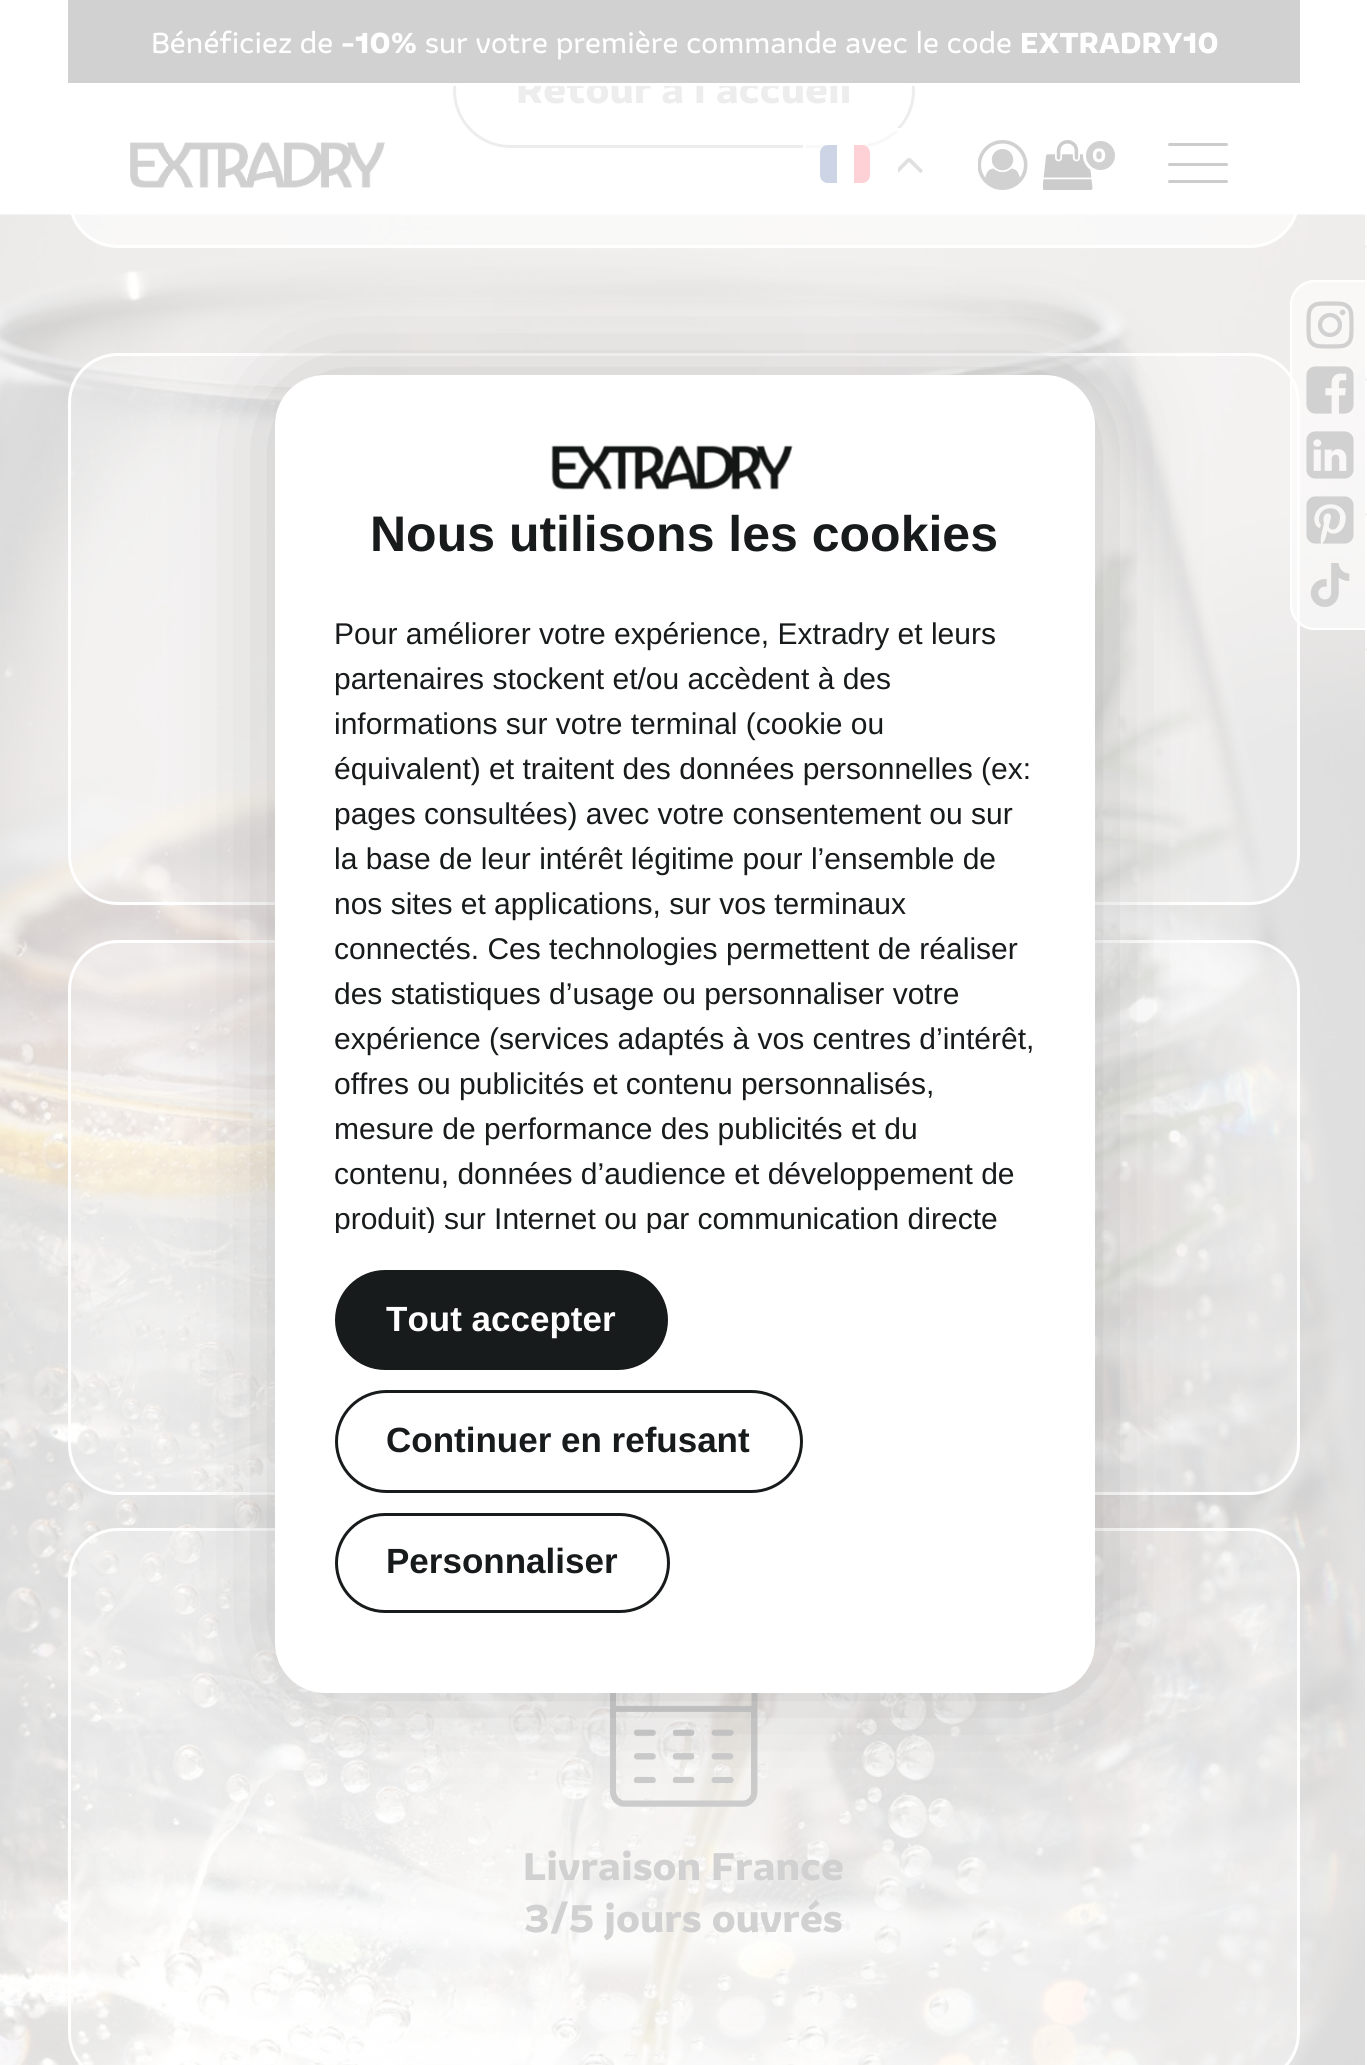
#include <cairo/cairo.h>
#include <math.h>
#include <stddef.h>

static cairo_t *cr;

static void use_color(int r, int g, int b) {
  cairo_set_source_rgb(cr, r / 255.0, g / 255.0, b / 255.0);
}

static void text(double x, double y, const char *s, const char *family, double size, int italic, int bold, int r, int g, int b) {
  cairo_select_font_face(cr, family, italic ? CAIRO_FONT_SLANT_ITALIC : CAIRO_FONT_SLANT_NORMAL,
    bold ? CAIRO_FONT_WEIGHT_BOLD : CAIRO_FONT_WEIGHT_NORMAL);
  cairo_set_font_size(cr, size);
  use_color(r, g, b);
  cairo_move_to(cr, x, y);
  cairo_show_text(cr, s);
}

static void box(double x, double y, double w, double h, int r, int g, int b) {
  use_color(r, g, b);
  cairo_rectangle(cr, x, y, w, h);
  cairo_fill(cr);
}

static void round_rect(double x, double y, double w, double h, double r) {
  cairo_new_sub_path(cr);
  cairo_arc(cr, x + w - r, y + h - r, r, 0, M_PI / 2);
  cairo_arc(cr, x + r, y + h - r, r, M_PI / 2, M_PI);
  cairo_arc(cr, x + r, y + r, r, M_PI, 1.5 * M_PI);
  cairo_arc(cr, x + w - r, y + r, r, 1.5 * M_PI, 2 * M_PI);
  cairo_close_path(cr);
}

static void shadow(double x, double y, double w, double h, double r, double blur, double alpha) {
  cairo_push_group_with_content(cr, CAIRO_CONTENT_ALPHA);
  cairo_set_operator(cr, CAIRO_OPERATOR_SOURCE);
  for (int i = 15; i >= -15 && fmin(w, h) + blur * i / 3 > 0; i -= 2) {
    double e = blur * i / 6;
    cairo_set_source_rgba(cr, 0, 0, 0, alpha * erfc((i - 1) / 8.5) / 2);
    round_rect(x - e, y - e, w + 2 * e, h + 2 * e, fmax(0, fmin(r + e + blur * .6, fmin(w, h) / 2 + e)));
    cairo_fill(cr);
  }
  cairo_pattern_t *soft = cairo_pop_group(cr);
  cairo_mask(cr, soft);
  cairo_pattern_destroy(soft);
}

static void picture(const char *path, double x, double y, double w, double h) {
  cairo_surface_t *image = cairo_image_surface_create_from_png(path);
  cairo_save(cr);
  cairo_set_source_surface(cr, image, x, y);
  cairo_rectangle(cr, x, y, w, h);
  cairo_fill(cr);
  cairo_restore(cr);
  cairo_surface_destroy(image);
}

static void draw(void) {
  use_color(255, 255, 255);
  cairo_paint(cr);
  round_rect(454.5, 34.5, 459, 112, 56);
  use_color(209, 209, 210);
  cairo_set_line_width(cr, 3);
  cairo_stroke(cr);
  box(68, 0, 1232, 83, 209, 209, 210);
  box(1365, 245, 2, 3, 245, 245, 245);
  picture("img_11.png", 0, 214, 1365, 1851);
  cairo_set_source_rgba(cr, 1, 1, 1, 0.3);
  round_rect(69.5, 354.5, 1229, 549, 48.5);
  cairo_fill_preserve(cr);
  use_color(255, 255, 255);
  cairo_stroke(cr);
  cairo_set_source_rgba(cr, 1, 1, 1, 0.6);
  cairo_new_path(cr);
  cairo_move_to(cr, 1315, 280);
  cairo_line_to(cr, 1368, 280);
  cairo_line_to(cr, 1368, 630);
  cairo_line_to(cr, 1315, 630);
  cairo_curve_to(cr, 1301, 630, 1290, 619, 1290, 605);
  cairo_line_to(cr, 1290, 305);
  cairo_curve_to(cr, 1290, 291, 1301, 280, 1315, 280);
  cairo_close_path(cr);
  cairo_fill(cr);
  use_color(255, 255, 255);
  cairo_set_fill_rule(cr, CAIRO_FILL_RULE_EVEN_ODD);
  cairo_new_path(cr);
  cairo_move_to(cr, 1315, 280);
  cairo_line_to(cr, 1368, 280);
  cairo_line_to(cr, 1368, 630);
  cairo_line_to(cr, 1315, 630);
  cairo_curve_to(cr, 1301, 630, 1290, 619, 1290, 605);
  cairo_line_to(cr, 1290, 305);
  cairo_curve_to(cr, 1290, 291, 1301, 280, 1315, 280);
  cairo_close_path(cr);
  cairo_move_to(cr, 1315, 282);
  cairo_line_to(cr, 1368, 282);
  cairo_line_to(cr, 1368, 628);
  cairo_line_to(cr, 1315, 628);
  cairo_curve_to(cr, 1303, 628, 1292, 617, 1292, 605);
  cairo_line_to(cr, 1292, 305);
  cairo_curve_to(cr, 1292, 293, 1303, 282, 1315, 282);
  cairo_close_path(cr);
  cairo_fill(cr);
  box(1365, 378, 2, 3, 245, 245, 245);
  box(1365, 513, 2, 3, 245, 245, 245);
  box(1365, 648, 2, 3, 245, 245, 245);
  picture("img_05.png", 1306, 301, 48, 48);
  picture("img_06.png", 1306, 366, 48, 48);
  picture("img_07.png", 1306, 431, 48, 48);
  picture("img_08.png", 1306, 496, 48, 48);
  picture("img_09.png", 1310, 563, 40, 44);
  cairo_set_source_rgba(cr, 1, 1, 1, 0.3);
  round_rect(69.5, 941.5, 1229, 552, 48.5);
  cairo_fill_preserve(cr);
  use_color(255, 255, 255);
  cairo_stroke(cr);
  cairo_set_source_rgba(cr, 1, 1, 1, 0.3);
  round_rect(69.5, 1529.5, 1229, 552, 48.5);
  cairo_fill_preserve(cr);
  use_color(255, 255, 255);
  cairo_stroke(cr);
  picture("img_12.png", 609, 1693, 149, 114);
  text(151, 53, "Bénéficiez de", "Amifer", 30, 0, 0, 255, 255, 255);
  text(341, 53, "-10%", "Amifer", 30, 0, 1, 255, 255, 255);
  text(425, 53, "sur votre première commande avec le code", "Amifer", 30, 0, 0, 255, 255, 255);
  text(1020, 53, "EXTRADRY10", "Amifer", 30, 0, 1, 255, 255, 255);
  text(516, 103, "Retour à l'accueil", "Amifer", 40, 0, 1, 209, 209, 210);
  cairo_set_source_rgba(cr, 1, 1, 1, 0.6);
  cairo_new_path(cr);
  cairo_move_to(cr, 69.5, 84.5);
  cairo_line_to(cr, 1298.5, 84.5);
  cairo_line_to(cr, 1298.5, 198);
  cairo_curve_to(cr, 1298.5, 225, 1277, 246.5, 1250, 246.5);
  cairo_line_to(cr, 118, 246.5);
  cairo_curve_to(cr, 91, 246.5, 69.5, 225, 69.5, 198);
  cairo_close_path(cr);
  cairo_fill_preserve(cr);
  use_color(255, 255, 255);
  cairo_stroke(cr);
  use_color(204, 204, 204);
  round_rect(1168, 180, 60, 3, 1.5);
  cairo_fill(cr);
  round_rect(1168, 163, 60, 3, 1.5);
  cairo_fill(cr);
  round_rect(1168, 143, 60, 3, 1.5);
  cairo_fill(cr);
  cairo_set_source_rgba(cr, 1, 1, 1, 0.6);
  round_rect(804.5, 129.5, 142, 69, 18.5);
  cairo_fill_preserve(cr);
  use_color(255, 255, 255);
  cairo_stroke(cr);
  picture("img_02.png", 898, 158, 25, 15);
  cairo_save(cr);
  cairo_set_fill_rule(cr, CAIRO_FILL_RULE_WINDING);
  round_rect(820, 145, 50, 38, 8);
  cairo_clip(cr);
  cairo_new_path(cr);
  cairo_move_to(cr, 828, 145);
  cairo_line_to(cr, 862, 145);
  cairo_curve_to(cr, 866.5, 145, 870, 148.5, 870, 153);
  cairo_line_to(cr, 870, 182);
  cairo_line_to(cr, 820, 182);
  cairo_line_to(cr, 820, 153);
  cairo_curve_to(cr, 820, 148.5, 823.5, 145, 828, 145);
  cairo_close_path(cr);
  cairo_fill(cr);
  cairo_restore(cr);
  use_color(253, 209, 214);
  cairo_new_path(cr);
  cairo_move_to(cr, 854, 145);
  cairo_line_to(cr, 862, 145);
  cairo_curve_to(cr, 866.5, 145, 870, 148.5, 870, 153);
  cairo_line_to(cr, 870, 175);
  cairo_curve_to(cr, 870, 179.5, 866.5, 183, 862, 183);
  cairo_line_to(cr, 854, 183);
  cairo_close_path(cr);
  cairo_fill(cr);
  use_color(204, 212, 229);
  cairo_new_path(cr);
  cairo_move_to(cr, 828, 145);
  cairo_line_to(cr, 837, 145);
  cairo_line_to(cr, 837, 183);
  cairo_line_to(cr, 828, 183);
  cairo_curve_to(cr, 823.5, 183, 820, 179.5, 820, 175);
  cairo_line_to(cr, 820, 153);
  cairo_curve_to(cr, 820, 148.5, 823.5, 145, 828, 145);
  cairo_close_path(cr);
  cairo_fill(cr);
  picture("img_04.png", 1043, 140, 50, 50);
  use_color(209, 209, 210);
  cairo_arc(cr, 1100.5, 155.5, 16, 0, 2 * M_PI);
  cairo_fill_preserve(cr);
  use_color(255, 255, 255);
  cairo_stroke(cr);
  text(1092, 162, "0", "Amifer", 20, 0, 1, 255, 255, 255);
  picture("img_03.png", 978, 140, 50, 50);
  picture("img_01.png", 130, 142, 255, 46);
  use_color(0, 0, 0);
  shadow(275, 375, 820, 1318, 50, 50, 0.2);
  use_color(255, 255, 255);
  round_rect(275, 375, 820, 1318, 50);
  cairo_fill(cr);
  picture("img_10.png", 551, 445, 242, 45);
  text(370, 551, "Nous utilisons les cookies", "Liberation Sans", 50, 0, 1, 24, 27, 28);
  text(334, 644, "Pour améliorer votre expérience, Extradry et leurs", "Liberation Sans", 30, 0, 0, 24, 27, 28);
  text(334, 689, "partenaires stockent et/ou accèdent à des", "Liberation Sans", 30, 0, 0, 24, 27, 28);
  text(334, 734, "informations sur votre terminal (cookie ou", "Liberation Sans", 30, 0, 0, 24, 27, 28);
  cairo_save(cr);
  cairo_set_fill_rule(cr, CAIRO_FILL_RULE_WINDING);
  cairo_rectangle(cr, 335, 613, 700, 620);
  cairo_clip(cr);
  text(334, 779, "équivalent) et traitent des données personnelles (ex:", "Liberation Sans", 30, 0, 0, 24, 27, 28);
  cairo_restore(cr);
  text(334, 824, "pages consultées) avec votre consentement ou sur", "Liberation Sans", 30, 0, 0, 24, 27, 28);
  text(334, 869, "la base de leur intérêt légitime pour l’ensemble de", "Liberation Sans", 30, 0, 0, 24, 27, 28);
  text(334, 914, "nos sites et applications, sur vos terminaux", "Liberation Sans", 30, 0, 0, 24, 27, 28);
  cairo_save(cr);
  cairo_set_fill_rule(cr, CAIRO_FILL_RULE_WINDING);
  cairo_rectangle(cr, 335, 613, 700, 620);
  cairo_clip(cr);
  text(334, 959, "connectés. Ces technologies permettent de réaliser", "Liberation Sans", 30, 0, 0, 24, 27, 28);
  text(334, 1004, "des statistiques d’usage ou personnaliser votre", "Liberation Sans", 30, 0, 0, 24, 27, 28);
  text(334, 1049, "expérience (services adaptés à vos centres d’intérêt,", "Liberation Sans", 30, 0, 0, 24, 27, 28);
  text(334, 1094, "offres ou publicités et contenu personnalisés,", "Liberation Sans", 30, 0, 0, 24, 27, 28);
  cairo_restore(cr);
  text(334, 1139, "mesure de performance des publicités et du", "Liberation Sans", 30, 0, 0, 24, 27, 28);
  cairo_save(cr);
  cairo_set_fill_rule(cr, CAIRO_FILL_RULE_WINDING);
  cairo_rectangle(cr, 335, 613, 700, 620);
  cairo_clip(cr);
  text(334, 1184, "contenu, données d’audience et développement de", "Liberation Sans", 30, 0, 0, 24, 27, 28);
  text(334, 1229, "produit) sur Internet ou par communication directe", "Liberation Sans", 30, 0, 0, 24, 27, 28);
  cairo_restore(cr);
  round_rect(336.5, 1271.5, 330, 97, 48.5);
  cairo_fill_preserve(cr);
  cairo_stroke(cr);
  text(386, 1331, "Tout accepter", "Liberation Sans", 35, 0, 1, 255, 255, 255);
  round_rect(336.5, 1391.5, 465, 100, 50);
  use_color(24, 27, 28);
  cairo_stroke(cr);
  text(386, 1452, "Continuer en refusant", "Liberation Sans", 35, 0, 1, 24, 27, 28);
  round_rect(336.5, 1514.5, 332, 97, 48.5);
  cairo_stroke(cr);
  text(386, 1573, "Personnaliser", "Liberation Sans", 35, 0, 1, 24, 27, 28);
  text(523, 1880, "Livraison France", "Amifer", 40, 0, 1, 209, 209, 210);
  text(524, 1932, "3/5 jours ouvrés", "Amifer", 40, 0, 1, 209, 209, 210);
}

int main(void) {
  cairo_surface_t *surface = cairo_image_surface_create(CAIRO_FORMAT_RGB24, 1367, 2065);
  cr = cairo_create(surface);
  cairo_font_options_t *options = cairo_font_options_create();
  cairo_font_options_set_hint_metrics(options, CAIRO_HINT_METRICS_OFF);
  cairo_font_options_set_hint_style(options, CAIRO_HINT_STYLE_NONE);
  cairo_set_font_options(cr, options);
  cairo_set_miter_limit(cr, 4);
  draw();
  cairo_surface_write_to_png(surface, "out.png");
  cairo_font_options_destroy(options);
  cairo_destroy(cr);
  cairo_surface_destroy(surface);
  return 0;
}
